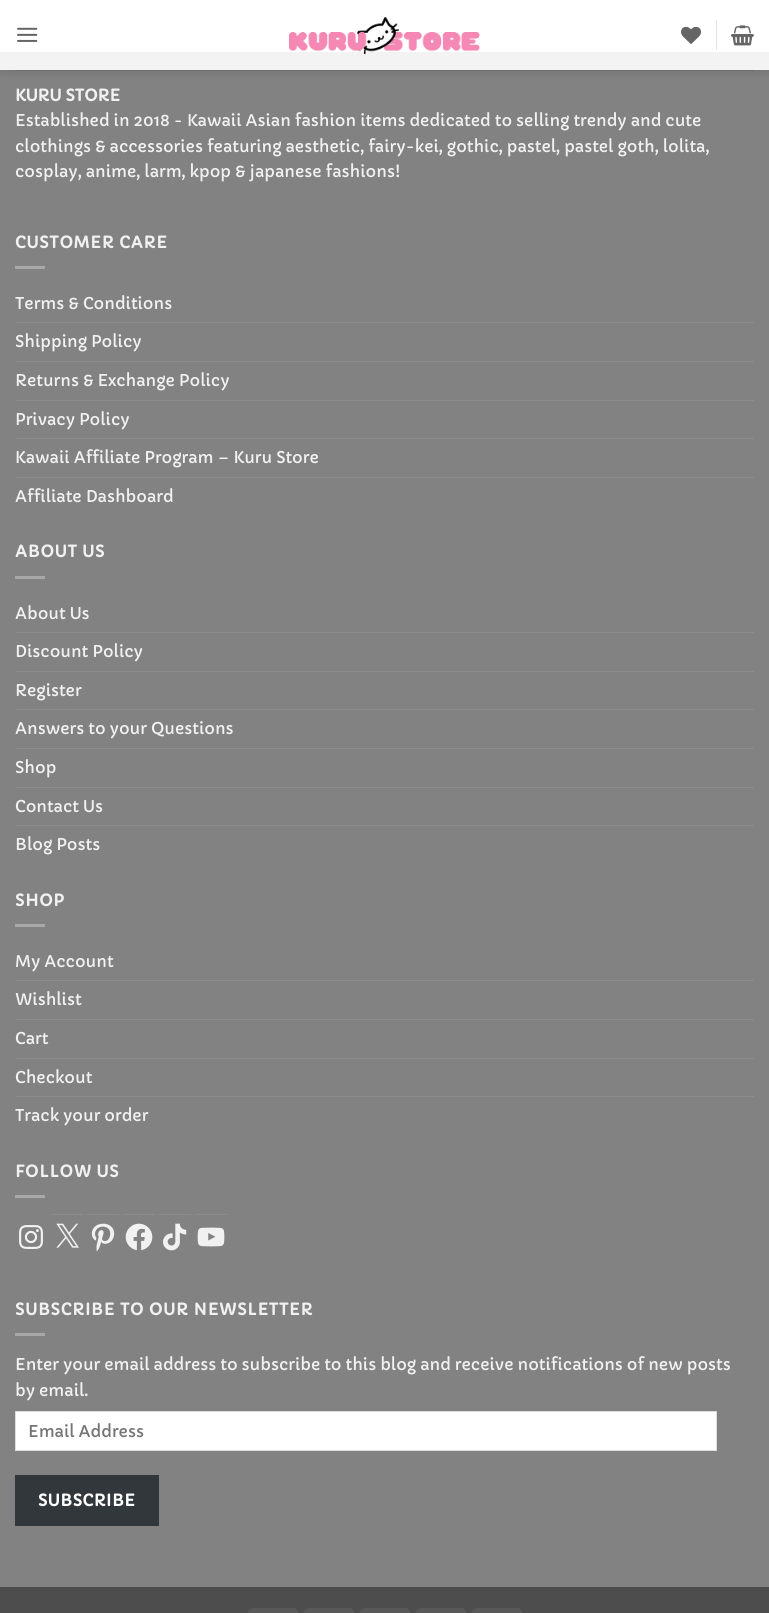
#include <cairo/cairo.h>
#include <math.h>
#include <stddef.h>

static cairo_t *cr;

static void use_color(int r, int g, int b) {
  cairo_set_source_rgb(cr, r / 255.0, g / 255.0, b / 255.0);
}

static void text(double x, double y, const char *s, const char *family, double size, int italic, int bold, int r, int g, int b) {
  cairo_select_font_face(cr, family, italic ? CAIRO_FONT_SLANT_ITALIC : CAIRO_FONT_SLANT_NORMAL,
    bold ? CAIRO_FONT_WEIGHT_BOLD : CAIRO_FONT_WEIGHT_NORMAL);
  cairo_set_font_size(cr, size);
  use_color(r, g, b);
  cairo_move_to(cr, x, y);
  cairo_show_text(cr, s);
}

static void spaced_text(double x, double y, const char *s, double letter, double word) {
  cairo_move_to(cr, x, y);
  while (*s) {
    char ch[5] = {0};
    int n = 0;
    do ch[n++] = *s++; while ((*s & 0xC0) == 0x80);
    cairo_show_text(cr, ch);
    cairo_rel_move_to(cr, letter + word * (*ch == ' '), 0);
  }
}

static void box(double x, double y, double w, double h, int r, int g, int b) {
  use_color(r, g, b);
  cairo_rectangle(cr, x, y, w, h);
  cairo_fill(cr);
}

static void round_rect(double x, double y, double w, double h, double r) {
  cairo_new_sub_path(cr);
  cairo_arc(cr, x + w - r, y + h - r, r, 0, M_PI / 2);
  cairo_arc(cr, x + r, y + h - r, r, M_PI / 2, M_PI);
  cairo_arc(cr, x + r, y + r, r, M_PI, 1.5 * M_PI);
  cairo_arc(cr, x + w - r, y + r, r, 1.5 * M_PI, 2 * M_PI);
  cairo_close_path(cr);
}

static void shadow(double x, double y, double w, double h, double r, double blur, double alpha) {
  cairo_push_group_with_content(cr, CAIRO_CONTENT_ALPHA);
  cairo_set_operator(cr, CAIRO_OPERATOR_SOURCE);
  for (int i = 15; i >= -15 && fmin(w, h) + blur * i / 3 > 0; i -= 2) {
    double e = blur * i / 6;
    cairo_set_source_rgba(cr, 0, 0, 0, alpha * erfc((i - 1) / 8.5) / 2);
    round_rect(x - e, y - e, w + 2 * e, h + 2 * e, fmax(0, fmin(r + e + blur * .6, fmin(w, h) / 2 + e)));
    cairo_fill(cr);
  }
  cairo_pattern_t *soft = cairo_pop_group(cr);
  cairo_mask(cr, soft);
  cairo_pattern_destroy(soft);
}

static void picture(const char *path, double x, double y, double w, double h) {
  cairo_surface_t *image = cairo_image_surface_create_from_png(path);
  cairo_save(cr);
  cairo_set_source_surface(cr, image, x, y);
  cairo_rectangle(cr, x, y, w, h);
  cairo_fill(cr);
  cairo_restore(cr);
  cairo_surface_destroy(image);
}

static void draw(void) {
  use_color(255, 255, 255);
  cairo_paint(cr);
  box(0, 70, 769, 1517, 130, 130, 130);
  box(0, 53, 769, 17, 243, 243, 243);
  box(0, 52, 769, 1, 242, 242, 242);
  cairo_save(cr);
  cairo_rectangle(cr, 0, 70, 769, 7);
  cairo_clip(cr);
  use_color(0, 0, 0);
  shadow(1, 1, 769, 70, 0, 5, 0.15);
  cairo_restore(cr);
  picture("img_01.png", 17, 27, 21, 15);
  picture("img_02.png", 288, 17, 192, 38);
  picture("img_03.png", 681, 26, 20, 18);
  box(716, 20, 1, 30, 230, 230, 230);
  picture("img_04.png", 731, 25, 23, 21);
  box(15, 70, 739, 1, 109, 109, 109);
  box(15, 266, 30, 3, 168, 168, 168);
  box(15, 322, 739, 1, 140, 140, 140);
  box(15, 361, 739, 1, 140, 140, 140);
  box(15, 400, 739, 1, 140, 140, 140);
  box(15, 438, 739, 1, 140, 140, 140);
  box(15, 477, 739, 1, 140, 140, 140);
  box(15, 576, 30, 3, 168, 168, 168);
  box(15, 632, 739, 1, 140, 140, 140);
  box(15, 671, 739, 1, 140, 140, 140);
  box(15, 709, 739, 1, 140, 140, 140);
  box(15, 748, 739, 1, 140, 140, 140);
  box(15, 787, 739, 1, 140, 140, 140);
  box(15, 825, 739, 1, 140, 140, 140);
  box(15, 924, 30, 3, 168, 168, 168);
  box(15, 980, 739, 1, 140, 140, 140);
  box(15, 1019, 739, 1, 140, 140, 140);
  box(15, 1058, 739, 1, 140, 140, 140);
  box(15, 1096, 739, 1, 140, 140, 140);
  box(15, 1195, 30, 3, 168, 168, 168);
  picture("img_05.png", 19, 1225, 24, 24);
  box(51, 1214, 32, 1, 140, 140, 140);
  picture("img_06.png", 56, 1223, 23, 25);
  box(87, 1214, 32, 1, 140, 140, 140);
  picture("img_07.png", 91, 1223, 24, 29);
  box(123, 1214, 32, 1, 140, 140, 140);
  picture("img_08.png", 125, 1223, 28, 28);
  box(159, 1214, 32, 1, 140, 140, 140);
  picture("img_09.png", 163, 1223, 24, 28);
  box(195, 1214, 32, 1, 140, 140, 140);
  picture("img_10.png", 197, 1227, 28, 20);
  box(15, 1333, 30, 3, 168, 168, 168);
  use_color(255, 255, 255);
  cairo_rectangle(cr, 15.5, 1411.5, 701, 39);
  cairo_fill_preserve(cr);
  use_color(221, 221, 221);
  cairo_set_line_width(cr, 1);
  cairo_stroke(cr);
  box(15, 1475, 144, 51, 50, 55, 60);
  box(0, 1587, 769, 26, 77, 77, 77);
  use_color(88, 88, 88);
  round_rect(248, 1608, 50, 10, 5);
  cairo_fill(cr);
  round_rect(304, 1608, 50, 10, 5);
  cairo_fill(cr);
  round_rect(360, 1608, 50, 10, 5);
  cairo_fill(cr);
  round_rect(416, 1608, 50, 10, 5);
  cairo_fill(cr);
  round_rect(472, 1608, 50, 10, 5);
  cairo_fill(cr);
  text(15, 101, "KURU STORE", "Capriola", 16, 0, 1, 241, 241, 241);
  text(15, 126, "Established in 2018 - Kawaii Asian fashion items dedicated to selling trendy and cute", "Capriola", 16, 0, 0, 241, 241, 241);
  text(15, 152, "clothings & accessories featuring aesthetic, fairy-kei, gothic, pastel, pastel goth, lolita,", "Capriola", 16, 0, 0, 241, 241, 241);
  text(15, 177, "cosplay, anime, larm, kpop & japanese fashions!", "Capriola", 16, 0, 0, 241, 241, 241);
  cairo_select_font_face(cr, "Capriola", CAIRO_FONT_SLANT_NORMAL, CAIRO_FONT_WEIGHT_BOLD);
  spaced_text(15, 248, "CUSTOMER CARE", 0.8, 0);
  text(15, 309, "Terms & Conditions", "Capriola", 16, 0, 0, 241, 241, 241);
  text(15, 347, "Shipping Policy", "Capriola", 16, 0, 0, 241, 241, 241);
  text(15, 386, "Returns & Exchange Policy", "Capriola", 16, 0, 0, 241, 241, 241);
  text(15, 425, "Privacy Policy", "Capriola", 16, 0, 0, 241, 241, 241);
  text(15, 463, "Kawaii Affiliate Program – Kuru Store", "Capriola", 16, 0, 0, 241, 241, 241);
  text(15, 502, "Affiliate Dashboard", "Capriola", 16, 0, 0, 241, 241, 241);
  cairo_select_font_face(cr, "Capriola", CAIRO_FONT_SLANT_NORMAL, CAIRO_FONT_WEIGHT_BOLD);
  spaced_text(15, 557, "ABOUT US", 0.8, 0);
  text(15, 619, "About Us", "Capriola", 16, 0, 0, 241, 241, 241);
  text(15, 657, "Discount Policy", "Capriola", 16, 0, 0, 241, 241, 241);
  text(15, 696, "Register", "Capriola", 16, 0, 0, 241, 241, 241);
  text(15, 734, "Answers to your Questions", "Capriola", 16, 0, 0, 241, 241, 241);
  text(15, 773, "Shop", "Capriola", 16, 0, 0, 241, 241, 241);
  text(15, 812, "Contact Us", "Capriola", 16, 0, 0, 241, 241, 241);
  text(15, 850, "Blog Posts", "Capriola", 16, 0, 0, 241, 241, 241);
  cairo_select_font_face(cr, "Capriola", CAIRO_FONT_SLANT_NORMAL, CAIRO_FONT_WEIGHT_BOLD);
  spaced_text(15, 906, "SHOP", 0.8, 0);
  text(15, 967, "My Account", "Capriola", 16, 0, 0, 241, 241, 241);
  text(15, 1005, "Wishlist", "Capriola", 16, 0, 0, 241, 241, 241);
  text(15, 1044, "Cart", "Capriola", 16, 0, 0, 241, 241, 241);
  text(15, 1083, "Checkout", "Capriola", 16, 0, 0, 241, 241, 241);
  text(15, 1121, "Track your order", "Capriola", 16, 0, 0, 241, 241, 241);
  cairo_select_font_face(cr, "Capriola", CAIRO_FONT_SLANT_NORMAL, CAIRO_FONT_WEIGHT_BOLD);
  spaced_text(15, 1177, "FOLLOW US", 0.8, 0);
  spaced_text(15, 1315, "SUBSCRIBE TO OUR NEWSLETTER", 0.8, 0);
  text(15, 1370, "Enter your email address to subscribe to this blog and receive notifications of new posts", "Capriola", 16, 0, 0, 241, 241, 241);
  text(15, 1396, "by email.", "Capriola", 16, 0, 0, 241, 241, 241);
  text(28, 1437, "Email Address", "Capriola", 16, 0, 0, 117, 117, 117);
  cairo_select_font_face(cr, "Capriola", CAIRO_FONT_SLANT_NORMAL, CAIRO_FONT_WEIGHT_BOLD);
  use_color(255, 255, 255);
  spaced_text(38, 1506, "SUBSCRIBE", 0.5, 0);
}

int main(void) {
  cairo_surface_t *surface = cairo_image_surface_create(CAIRO_FORMAT_RGB24, 769, 1613);
  cr = cairo_create(surface);
  cairo_font_options_t *options = cairo_font_options_create();
  cairo_font_options_set_hint_metrics(options, CAIRO_HINT_METRICS_OFF);
  cairo_font_options_set_hint_style(options, CAIRO_HINT_STYLE_NONE);
  cairo_set_font_options(cr, options);
  cairo_set_miter_limit(cr, 4);
  draw();
  cairo_surface_write_to_png(surface, "out.png");
  cairo_font_options_destroy(options);
  cairo_destroy(cr);
  cairo_surface_destroy(surface);
  return 0;
}
